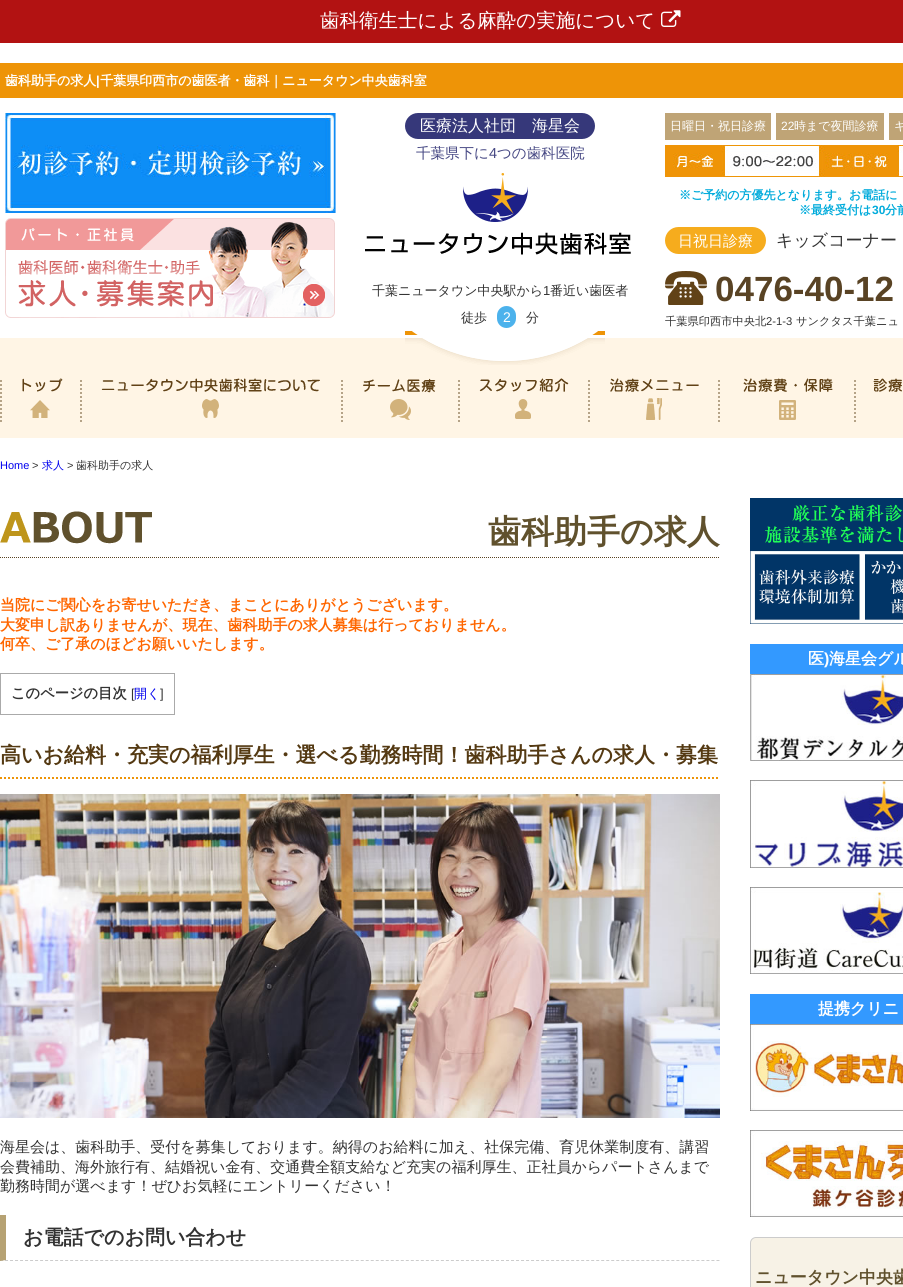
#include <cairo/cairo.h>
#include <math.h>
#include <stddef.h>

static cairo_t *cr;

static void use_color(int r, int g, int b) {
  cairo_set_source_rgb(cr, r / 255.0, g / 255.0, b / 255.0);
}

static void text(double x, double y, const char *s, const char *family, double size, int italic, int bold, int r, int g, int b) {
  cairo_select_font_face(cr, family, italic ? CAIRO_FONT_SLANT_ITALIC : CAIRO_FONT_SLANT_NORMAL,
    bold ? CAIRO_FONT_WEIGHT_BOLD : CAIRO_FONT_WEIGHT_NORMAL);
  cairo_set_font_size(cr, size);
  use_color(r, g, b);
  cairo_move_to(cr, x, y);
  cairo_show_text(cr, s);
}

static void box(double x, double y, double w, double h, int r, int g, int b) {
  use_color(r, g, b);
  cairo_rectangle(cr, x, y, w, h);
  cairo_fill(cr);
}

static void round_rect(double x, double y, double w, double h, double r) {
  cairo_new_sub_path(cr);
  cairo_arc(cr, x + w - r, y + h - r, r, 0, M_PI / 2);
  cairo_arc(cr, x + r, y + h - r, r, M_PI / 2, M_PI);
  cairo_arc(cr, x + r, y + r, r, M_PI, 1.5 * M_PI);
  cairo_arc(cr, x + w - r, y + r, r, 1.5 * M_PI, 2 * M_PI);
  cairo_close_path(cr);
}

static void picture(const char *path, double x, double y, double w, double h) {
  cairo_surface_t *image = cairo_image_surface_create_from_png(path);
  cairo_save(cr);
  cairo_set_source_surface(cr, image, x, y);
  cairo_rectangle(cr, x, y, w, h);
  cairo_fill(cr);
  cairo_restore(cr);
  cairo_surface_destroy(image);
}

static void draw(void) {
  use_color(255, 255, 255);
  cairo_paint(cr);
  box(0, 0, 903, 43, 178, 18, 18);
  picture("img_01.png", 661, 10, 20, 17);
  box(0, 63, 903, 35, 238, 148, 7);
  picture("img_02.png", 5, 113, 331, 100);
  picture("img_03.png", 5, 218, 330, 100);
  use_color(54, 56, 122);
  round_rect(405, 113, 190, 26, 13);
  cairo_fill(cr);
  picture("img_04.png", 365, 173, 266, 82);
  box(0, 338, 903, 100, 255, 245, 229);
  picture("img_05.png", 405, 331, 200, 34);
  use_color(76, 178, 236);
  round_rect(497, 306, 19, 22, 9.5);
  cairo_fill(cr);
  box(665, 113, 106, 27, 191, 164, 118);
  box(776, 113, 108, 27, 191, 164, 118);
  box(889, 113, 14, 27, 191, 164, 118);
  picture("img_06.png", 665, 145, 238, 32);
  use_color(246, 172, 29);
  round_rect(665, 227, 101, 27, 13.5);
  cairo_fill(cr);
  picture("img_07.png", 665, 271, 42, 34);
  picture("img_08.png", 0, 378, 63, 44);
  picture("img_09.png", 80, 378, 240, 44);
  picture("img_10.png", 341, 378, 95, 44);
  picture("img_11.png", 458, 378, 111, 44);
  picture("img_12.png", 588, 378, 131, 44);
  picture("img_13.png", 719, 378, 114, 44);
  picture("img_14.png", 854, 378, 48, 44);
  picture("img_15.png", 0, 511, 719, 47);
  cairo_rectangle(cr, 0.5, 673.5, 174, 41);
  use_color(170, 170, 170);
  cairo_set_line_width(cr, 1);
  cairo_stroke(cr);
  picture("img_16.png", 0, 777, 718, 2);
  picture("img_17.png", 0, 794, 720, 324);
  cairo_new_path(cr);
  cairo_move_to(cr, 0, 1260.5);
  cairo_line_to(cr, 720, 1260.5);
  use_color(204, 204, 204);
  cairo_set_dash(cr, (double[]){3, 2.01}, 2, 0);
  cairo_stroke(cr);
  use_color(182, 162, 115);
  cairo_new_path(cr);
  cairo_move_to(cr, 0, 1261);
  cairo_line_to(cr, 0, 1215);
  cairo_line_to(cr, 6, 1215);
  cairo_line_to(cr, 6, 1260);
  cairo_close_path(cr);
  cairo_fill(cr);
  picture("img_18.png", 750, 498, 153, 126);
  box(750, 644, 153, 30, 51, 153, 255);
  picture("img_19.png", 750, 674, 153, 87);
  picture("img_20.png", 750, 780, 153, 88);
  picture("img_21.png", 750, 887, 153, 87);
  box(750, 994, 153, 30, 51, 153, 255);
  picture("img_22.png", 750, 1024, 153, 87);
  picture("img_23.png", 750, 1130, 153, 87);
  use_color(247, 242, 230);
  cairo_new_path(cr);
  cairo_move_to(cr, 756, 1237.5);
  cairo_line_to(cr, 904, 1237.5);
  cairo_curve_to(cr, 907, 1237.5, 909.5, 1240, 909.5, 1243);
  cairo_line_to(cr, 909.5, 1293.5);
  cairo_line_to(cr, 750.5, 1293.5);
  cairo_line_to(cr, 750.5, 1243);
  cairo_curve_to(cr, 750.5, 1240, 753, 1237.5, 756, 1237.5);
  cairo_close_path(cr);
  cairo_fill_preserve(cr);
  use_color(204, 204, 204);
  cairo_set_dash(cr, NULL, 0, 0);
  cairo_stroke(cr);
  text(320, 27, "歯科衛生士による麻酔の実施について", "WenQuanYi Zen Hei Medium", 19.5, 0, 0, 255, 255, 255);
  text(5, 85, "歯科助手の求人 千葉県印西市の歯医者・歯科｜ニュータウン中央歯科室", "WenQuanYi Zen Hei", 13, 0, 1, 255, 255, 255);
  text(96, 85, "|", "Liberation Sans", 13, 0, 1, 255, 255, 255);
  text(420, 131, "医療法人社団　海星会", "WenQuanYi Zen Hei Medium", 16, 0, 0, 255, 255, 255);
  text(416, 158, "千葉県下に", "WenQuanYi Zen Hei Medium", 14.5, 0, 0, 69, 71, 131);
  text(489, 158, "4", "Liberation Sans", 14.5, 0, 0, 69, 71, 131);
  text(497, 158, "つの歯科医院", "WenQuanYi Zen Hei Medium", 14.5, 0, 0, 69, 71, 131);
  text(372, 295, "千葉ニュータウン中央駅から", "WenQuanYi Zen Hei Medium", 13, 0, 0, 51, 51, 51);
  text(543, 295, "1", "Liberation Sans", 13, 0, 0, 51, 51, 51);
  text(550, 295, "番近い歯医者", "WenQuanYi Zen Hei Medium", 13, 0, 0, 51, 51, 51);
  text(461, 322, "徒歩", "WenQuanYi Zen Hei Medium", 13, 0, 0, 51, 51, 51);
  text(503, 322, "2", "Liberation Sans", 14, 0, 0, 255, 255, 255);
  text(526, 322, "分", "WenQuanYi Zen Hei Medium", 13, 0, 0, 51, 51, 51);
  text(670, 130, "日曜日・祝日診療", "WenQuanYi Zen Hei Medium", 12, 0, 0, 255, 255, 255);
  text(781, 130, "22", "Liberation Sans", 12, 0, 0, 255, 255, 255);
  text(794, 130, "時まで夜間診療", "WenQuanYi Zen Hei Medium", 12, 0, 0, 255, 255, 255);
  text(894, 130, "キ", "WenQuanYi Zen Hei Medium", 12, 0, 0, 255, 255, 255);
  text(679, 199, "※ご予約の方優先となります。お電話に", "WenQuanYi Zen Hei", 12, 0, 1, 1, 171, 219);
  text(799, 214, "※最終受付は", "WenQuanYi Zen Hei", 12, 0, 1, 1, 171, 219);
  text(872, 214, "30", "Liberation Sans", 12, 0, 1, 1, 171, 219);
  text(885, 214, "分前", "WenQuanYi Zen Hei", 12, 0, 1, 1, 171, 219);
  text(678, 246, "日祝日診療", "WenQuanYi Zen Hei Medium", 15, 0, 0, 255, 255, 255);
  text(776, 246, "キッズコーナー", "WenQuanYi Zen Hei Medium", 17, 0, 0, 51, 51, 51);
  text(715, 301, "0476-40-12", "Liberation Sans", 35, 0, 1, 89, 67, 36);
  text(665, 325, "千葉県印西市中央北", "WenQuanYi Zen Hei Medium", 11.25, 0, 0, 51, 51, 51);
  text(766, 325, "2-1-3", "Liberation Sans", 11.25, 0, 0, 51, 51, 51);
  text(796, 325, "サンクタス千葉ニュ", "WenQuanYi Zen Hei Medium", 11.25, 0, 0, 51, 51, 51);
  text(0, 469, "Home", "Liberation Sans", 11, 0, 0, 0, 0, 238);
  text(32, 469, ">", "Liberation Sans", 11, 0, 0, 51, 51, 51);
  text(42, 469, "求人", "WenQuanYi Zen Hei Medium", 11, 0, 0, 0, 0, 238);
  text(67, 469, ">", "Liberation Sans", 11, 0, 0, 51, 51, 51);
  text(76, 469, "歯科助手の求人", "WenQuanYi Zen Hei Medium", 11, 0, 0, 51, 51, 51);
  text(488, 543, "歯科助手の求人", "WenQuanYi Zen Hei", 33, 0, 1, 96, 81, 45);
  text(0, 610, "当院にご関心をお寄せいただき、まことにありがとうございます。", "WenQuanYi Zen Hei", 15, 0, 1, 255, 102, 0);
  text(0, 630, "大変申し訳ありませんが、現在、歯科助手の求人募集は行っておりません。", "WenQuanYi Zen Hei", 15, 0, 1, 255, 102, 0);
  text(0, 649, "何卒、ご了承のほどお願いいたします。", "WenQuanYi Zen Hei", 15, 0, 1, 255, 102, 0);
  text(11, 698, "このページの目次", "WenQuanYi Zen Hei", 14.25, 0, 1, 51, 51, 51);
  text(131, 698, "[", "Liberation Sans", 13, 0, 0, 51, 51, 51);
  text(134, 698, "開く", "WenQuanYi Zen Hei Medium", 13, 0, 0, 0, 0, 238);
  text(160, 698, "]", "Liberation Sans", 13, 0, 0, 51, 51, 51);
  text(0, 762, "高いお給料・充実の福利厚生・選べる勤務時間！歯科助手さんの求人・募集", "WenQuanYi Zen Hei", 21, 0, 1, 84, 57, 18);
  text(0, 1152, "海星会は、歯科助手、受付を募集しております。納得のお給料に加え、社保完備、育児休業制度有、講習", "WenQuanYi Zen Hei Medium", 15, 0, 0, 51, 51, 51);
  text(0, 1172, "会費補助、海外旅行有、結婚祝い金有、交通費全額支給など充実の福利厚生、正社員からパートさんまで", "WenQuanYi Zen Hei Medium", 15, 0, 0, 51, 51, 51);
  text(0, 1191, "勤務時間が選べます！ぜひお気軽にエントリーください！", "WenQuanYi Zen Hei Medium", 15, 0, 0, 51, 51, 51);
  text(23, 1244, "お電話でのお問い合わせ", "WenQuanYi Zen Hei", 20, 0, 1, 51, 51, 51);
  text(808, 664, "医", "WenQuanYi Zen Hei", 16, 0, 1, 255, 255, 255);
  text(824, 664, ")", "Liberation Sans", 16, 0, 1, 255, 255, 255);
  text(829, 664, "海星会グル", "WenQuanYi Zen Hei", 16, 0, 1, 255, 255, 255);
  text(818, 1014, "提携クリニ", "WenQuanYi Zen Hei", 16, 0, 1, 255, 255, 255);
  text(755, 1283, "ニュータウン中央歯", "WenQuanYi Zen Hei", 17, 0, 1, 96, 81, 45);
}

int main(void) {
  cairo_surface_t *surface = cairo_image_surface_create(CAIRO_FORMAT_RGB24, 903, 1287);
  cr = cairo_create(surface);
  cairo_font_options_t *options = cairo_font_options_create();
  cairo_font_options_set_hint_metrics(options, CAIRO_HINT_METRICS_OFF);
  cairo_font_options_set_hint_style(options, CAIRO_HINT_STYLE_NONE);
  cairo_set_font_options(cr, options);
  cairo_set_miter_limit(cr, 4);
  draw();
  cairo_surface_write_to_png(surface, "out.png");
  cairo_font_options_destroy(options);
  cairo_destroy(cr);
  cairo_surface_destroy(surface);
  return 0;
}
